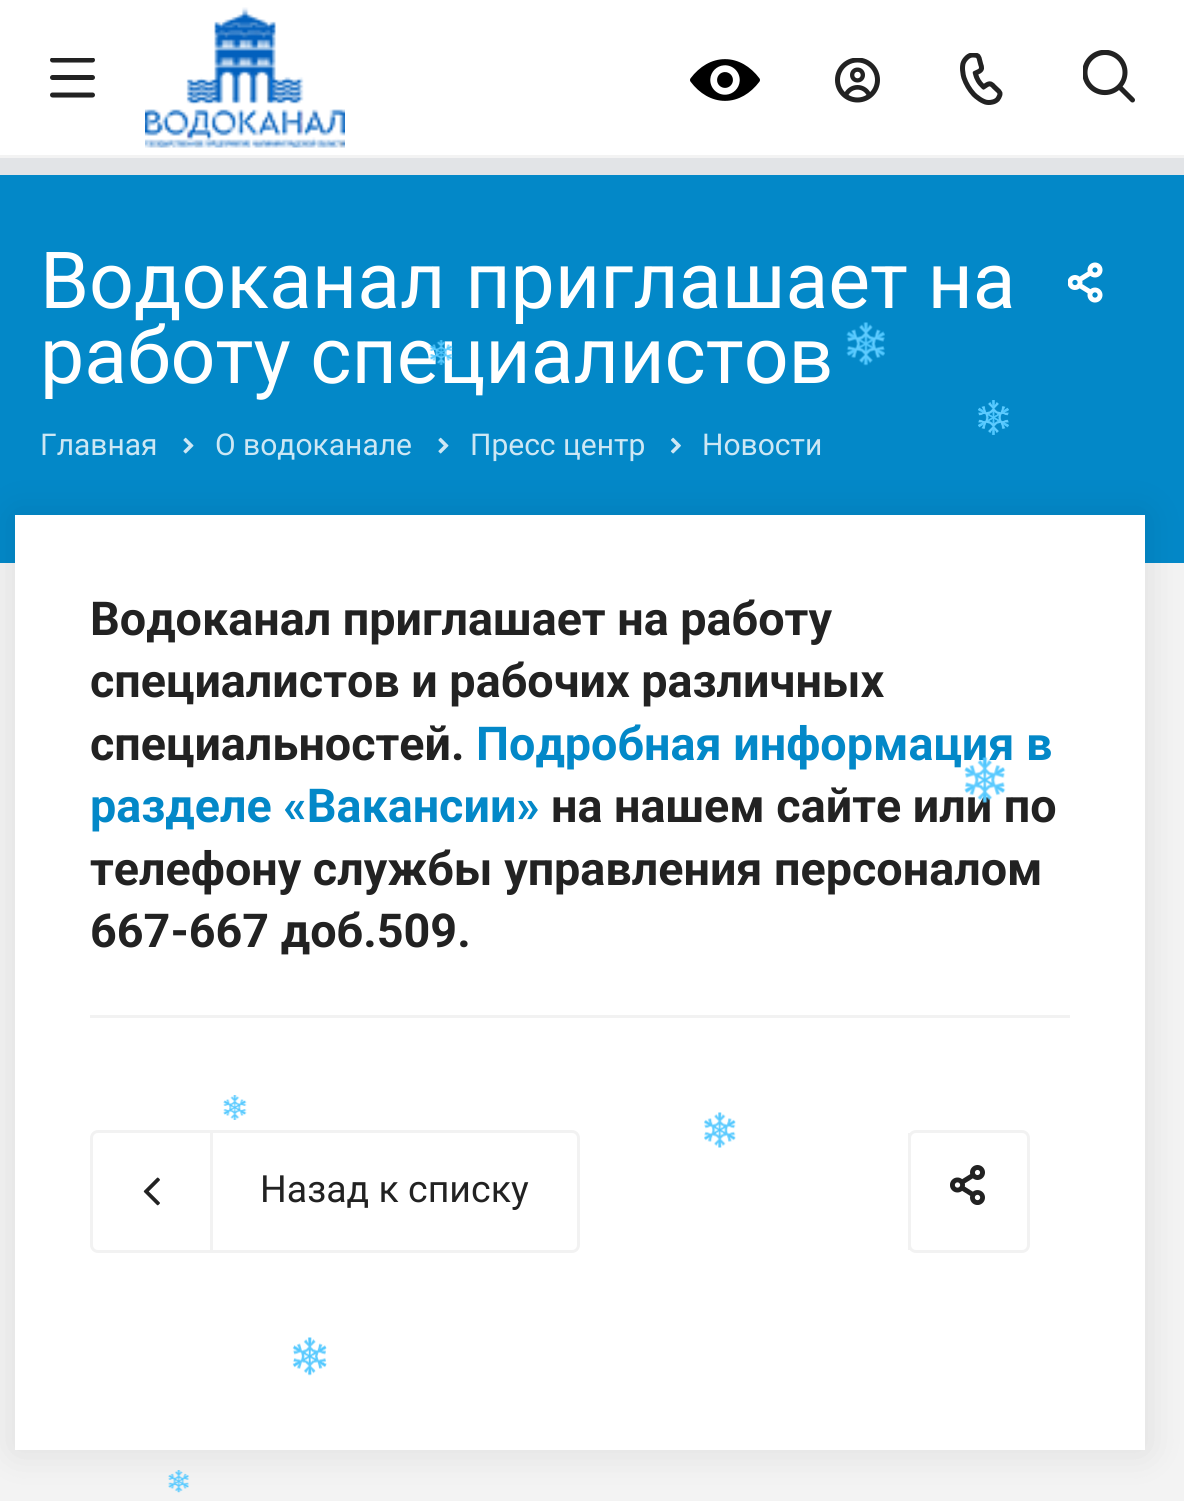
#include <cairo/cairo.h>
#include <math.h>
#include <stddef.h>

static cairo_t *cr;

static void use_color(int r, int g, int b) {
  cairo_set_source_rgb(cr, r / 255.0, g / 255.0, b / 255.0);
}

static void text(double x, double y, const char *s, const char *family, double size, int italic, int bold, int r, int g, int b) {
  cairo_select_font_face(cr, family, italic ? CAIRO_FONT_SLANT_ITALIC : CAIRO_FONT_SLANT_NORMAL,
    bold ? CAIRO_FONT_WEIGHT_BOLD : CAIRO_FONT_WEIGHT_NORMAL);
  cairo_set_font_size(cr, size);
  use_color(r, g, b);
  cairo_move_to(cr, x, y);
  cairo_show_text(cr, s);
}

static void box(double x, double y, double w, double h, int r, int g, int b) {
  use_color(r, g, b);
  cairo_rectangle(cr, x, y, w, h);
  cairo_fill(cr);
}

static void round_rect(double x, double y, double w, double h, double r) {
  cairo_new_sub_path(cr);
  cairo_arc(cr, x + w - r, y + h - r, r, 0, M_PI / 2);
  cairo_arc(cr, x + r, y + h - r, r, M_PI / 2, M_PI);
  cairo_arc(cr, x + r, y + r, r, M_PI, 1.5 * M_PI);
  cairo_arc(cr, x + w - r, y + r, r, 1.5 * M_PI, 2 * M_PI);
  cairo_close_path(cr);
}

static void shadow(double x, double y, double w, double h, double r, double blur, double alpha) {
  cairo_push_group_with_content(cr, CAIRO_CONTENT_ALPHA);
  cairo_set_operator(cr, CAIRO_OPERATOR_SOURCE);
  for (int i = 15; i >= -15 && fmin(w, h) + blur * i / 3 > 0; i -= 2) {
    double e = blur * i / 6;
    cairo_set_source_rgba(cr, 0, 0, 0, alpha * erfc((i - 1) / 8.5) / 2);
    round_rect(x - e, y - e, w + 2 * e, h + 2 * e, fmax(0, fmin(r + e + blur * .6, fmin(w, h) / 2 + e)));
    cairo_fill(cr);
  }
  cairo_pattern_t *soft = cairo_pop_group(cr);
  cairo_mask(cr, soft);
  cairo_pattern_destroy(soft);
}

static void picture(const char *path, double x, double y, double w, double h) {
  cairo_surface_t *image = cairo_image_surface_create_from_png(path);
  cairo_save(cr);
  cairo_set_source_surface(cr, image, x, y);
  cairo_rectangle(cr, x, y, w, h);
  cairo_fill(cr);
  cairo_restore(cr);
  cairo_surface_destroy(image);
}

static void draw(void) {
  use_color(243, 243, 243);
  cairo_paint(cr);
  box(0, 0, 1184, 155, 255, 255, 255);
  picture("img_01.png", 50, 58, 45, 40);
  picture("img_02.png", 145, 7, 200, 141);
  picture("img_03.png", 690, 59, 70, 42);
  picture("img_04.png", 835, 58, 45, 45);
  picture("img_05.png", 960, 53, 43, 52);
  picture("img_06.png", 1083, 50, 52, 53);
  box(0, 175, 1184, 388, 3, 136, 200);
  box(0, 158, 1184, 17, 226, 228, 231);
  picture("img_07.png", 1068, 262, 35, 41);
  picture("img_08.png", 183, 437, 11, 17);
  picture("img_08.png", 438, 437, 11, 17);
  picture("img_09.png", 670, 437, 11, 17);
  use_color(0, 0, 0);
  shadow(15, 515, 1130, 935, 0, 19, 0.1);
  box(15, 515, 1130, 935, 255, 255, 255);
  box(90, 1015, 980, 3, 242, 242, 242);
  round_rect(91.5, 1131.5, 487, 120, 6.5);
  cairo_set_line_width(cr, 3);
  cairo_stroke(cr);
  picture("img_10.png", 143, 1177, 17, 29);
  box(210, 1133, 3, 117, 242, 242, 242);
  round_rect(909.5, 1131.5, 119, 120, 6.5);
  cairo_stroke(cr);
  box(908, 1133, 2, 117, 242, 242, 242);
  picture("img_11.png", 950, 1165, 35, 40);
  picture("img_14.png", 978, 400, 31, 35);
  picture("img_16.png", 223, 1095, 24, 25);
  picture("img_17.png", 704, 1112, 32, 36);
  picture("img_18.png", 292, 1337, 35, 39);
  picture("img_19.png", 168, 1470, 22, 23);
  text(40, 308, "Водоканал приглашает на", "Roboto", 78.75, 0, 0, 255, 255, 255);
  text(40, 383, "работу специалистов", "Roboto", 78.75, 0, 0, 255, 255, 255);
  text(40, 455, "Главная", "Roboto", 30, 0, 0, 205, 231, 244);
  text(215, 455, "О водоканале", "Roboto", 30, 0, 0, 205, 231, 244);
  text(470, 455, "Пресс центр", "Roboto", 30, 0, 0, 205, 231, 244);
  text(702, 455, "Новости", "Roboto", 30, 0, 0, 205, 231, 244);
  text(90, 635, "Водоканал приглашает на работу", "Roboto", 46.7, 0, 1, 34, 34, 34);
  text(90, 697, "специалистов и рабочих различных", "Roboto", 46.7, 0, 1, 34, 34, 34);
  text(90, 760, "специальностей.", "Roboto", 46.7, 0, 1, 34, 34, 34);
  text(476, 760, "Подробная информация в", "Roboto", 46.7, 0, 1, 3, 136, 200);
  text(90, 822, "разделе «Вакансии»", "Roboto", 46.7, 0, 1, 3, 136, 200);
  text(551, 822, "на нашем сайте или по", "Roboto", 46.7, 0, 1, 34, 34, 34);
  text(90, 885, "телефону службы управления персоналом", "Roboto", 46.7, 0, 1, 34, 34, 34);
  text(90, 947, "667-667 доб.509.", "Roboto", 46.7, 0, 1, 34, 34, 34);
  text(260, 1202, "Назад к списку", "Roboto", 37.5, 0, 0, 34, 34, 34);
  picture("img_12.png", 429, 340, 24, 25);
  picture("img_13.png", 846, 322, 39, 44);
  picture("img_15.png", 964, 757, 42, 46);
}

int main(void) {
  cairo_surface_t *surface = cairo_image_surface_create(CAIRO_FORMAT_RGB24, 1184, 1501);
  cr = cairo_create(surface);
  cairo_font_options_t *options = cairo_font_options_create();
  cairo_font_options_set_hint_metrics(options, CAIRO_HINT_METRICS_OFF);
  cairo_font_options_set_hint_style(options, CAIRO_HINT_STYLE_NONE);
  cairo_set_font_options(cr, options);
  cairo_set_miter_limit(cr, 4);
  draw();
  cairo_surface_write_to_png(surface, "out.png");
  cairo_font_options_destroy(options);
  cairo_destroy(cr);
  cairo_surface_destroy(surface);
  return 0;
}
